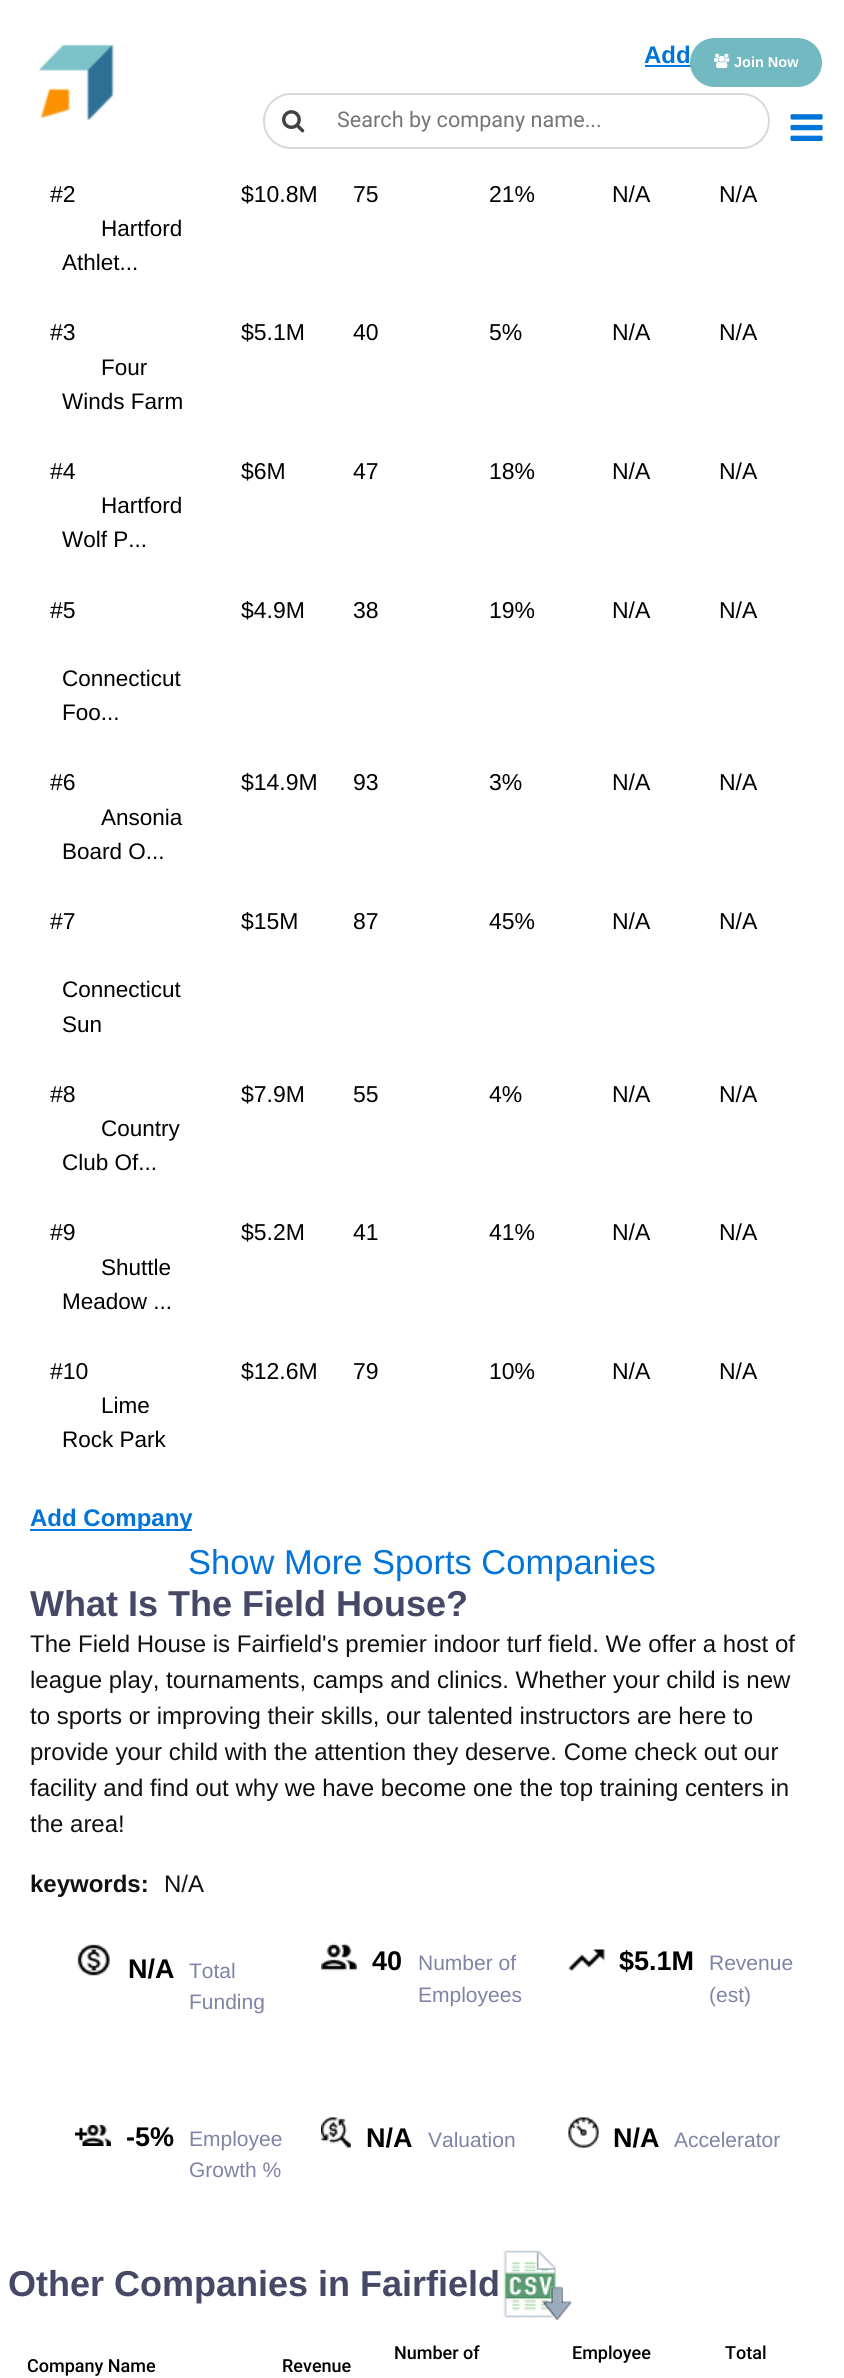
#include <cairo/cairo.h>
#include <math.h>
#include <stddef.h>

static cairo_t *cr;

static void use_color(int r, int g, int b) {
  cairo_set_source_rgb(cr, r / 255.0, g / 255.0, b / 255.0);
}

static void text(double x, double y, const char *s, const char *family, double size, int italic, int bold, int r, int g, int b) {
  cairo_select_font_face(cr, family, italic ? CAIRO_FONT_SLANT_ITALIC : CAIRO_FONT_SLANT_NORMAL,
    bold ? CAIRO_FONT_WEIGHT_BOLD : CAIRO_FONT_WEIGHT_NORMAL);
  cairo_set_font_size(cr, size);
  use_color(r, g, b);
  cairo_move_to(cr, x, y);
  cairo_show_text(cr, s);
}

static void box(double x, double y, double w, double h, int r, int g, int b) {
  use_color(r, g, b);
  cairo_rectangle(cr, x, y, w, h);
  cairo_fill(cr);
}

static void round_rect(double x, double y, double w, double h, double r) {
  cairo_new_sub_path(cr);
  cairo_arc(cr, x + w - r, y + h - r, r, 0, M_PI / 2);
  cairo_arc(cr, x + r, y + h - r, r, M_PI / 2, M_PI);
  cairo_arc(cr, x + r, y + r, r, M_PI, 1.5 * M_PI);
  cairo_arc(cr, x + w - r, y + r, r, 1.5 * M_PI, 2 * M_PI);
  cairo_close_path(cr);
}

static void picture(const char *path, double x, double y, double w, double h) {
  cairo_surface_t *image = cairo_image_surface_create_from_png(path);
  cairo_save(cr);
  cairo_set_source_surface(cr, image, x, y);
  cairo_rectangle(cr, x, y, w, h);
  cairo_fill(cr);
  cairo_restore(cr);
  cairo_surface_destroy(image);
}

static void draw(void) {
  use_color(255, 255, 255);
  cairo_paint(cr);
  picture("img_01.png", 39, 44, 75, 77);
  box(645, 65, 46, 2, 0, 116, 217);
  use_color(114, 185, 194);
  round_rect(690, 38, 132, 49, 24.5);
  cairo_fill(cr);
  picture("img_02.png", 714, 53, 16, 16);
  round_rect(264, 94, 505, 54, 27);
  use_color(214, 218, 221);
  cairo_stroke(cr);
  box(288, 95, 2, 52, 255, 255, 255);
  picture("img_03.png", 282, 110, 23, 23);
  picture("img_04.png", 790, 114, 33, 27);
  box(30, 1529, 162, 2, 0, 116, 217);
  picture("img_05.png", 77, 1944, 33, 32);
  picture("img_06.png", 321, 1943, 36, 28);
  picture("img_07.png", 568, 1949, 37, 22);
  picture("img_08.png", 75, 2125, 36, 21);
  picture("img_09.png", 321, 2117, 30, 31);
  picture("img_10.png", 568, 2117, 31, 31);
  picture("img_11.png", 503, 2250, 69, 70);
  text(644, 63, "Add", "Liberation Sans", 24, 0, 1, 0, 116, 217);
  text(734, 67, "Join Now", "Liberation Sans", 14.5, 0, 1, 255, 255, 255);
  text(337, 127, "Search by company name...", "Roboto", 21.6, 0, 0, 117, 117, 117);
  text(50, 202, "#2", "Liberation Sans", 23, 0, 0, 0, 0, 0);
  text(101, 236, "Hartford", "Liberation Sans", 22.5, 0, 0, 0, 0, 0);
  text(62, 270, "Athlet...", "Liberation Sans", 22.5, 0, 0, 0, 0, 0);
  text(241, 202, "$10.8M", "Liberation Sans", 23, 0, 0, 0, 0, 0);
  text(353, 202, "75", "Liberation Sans", 23, 0, 0, 0, 0, 0);
  text(489, 202, "21%", "Liberation Sans", 23, 0, 0, 0, 0, 0);
  text(612, 202, "N/A", "Liberation Sans", 23, 0, 0, 0, 0, 0);
  text(719, 202, "N/A", "Liberation Sans", 23, 0, 0, 0, 0, 0);
  text(50, 340, "#3", "Liberation Sans", 23, 0, 0, 0, 0, 0);
  text(101, 375, "Four", "Liberation Sans", 22.5, 0, 0, 0, 0, 0);
  text(62, 409, "Winds Farm", "Liberation Sans", 22.5, 0, 0, 0, 0, 0);
  text(241, 340, "$5.1M", "Liberation Sans", 23, 0, 0, 0, 0, 0);
  text(353, 340, "40", "Liberation Sans", 23, 0, 0, 0, 0, 0);
  text(489, 340, "5%", "Liberation Sans", 23, 0, 0, 0, 0, 0);
  text(612, 340, "N/A", "Liberation Sans", 23, 0, 0, 0, 0, 0);
  text(719, 340, "N/A", "Liberation Sans", 23, 0, 0, 0, 0, 0);
  text(50, 479, "#4", "Liberation Sans", 23, 0, 0, 0, 0, 0);
  text(101, 513, "Hartford", "Liberation Sans", 22.5, 0, 0, 0, 0, 0);
  text(62, 547, "Wolf P...", "Liberation Sans", 22.5, 0, 0, 0, 0, 0);
  text(241, 479, "$6M", "Liberation Sans", 23, 0, 0, 0, 0, 0);
  text(353, 479, "47", "Liberation Sans", 23, 0, 0, 0, 0, 0);
  text(489, 479, "18%", "Liberation Sans", 23, 0, 0, 0, 0, 0);
  text(612, 479, "N/A", "Liberation Sans", 23, 0, 0, 0, 0, 0);
  text(719, 479, "N/A", "Liberation Sans", 23, 0, 0, 0, 0, 0);
  text(50, 618, "#5", "Liberation Sans", 23, 0, 0, 0, 0, 0);
  text(62, 686, "Connecticut", "Liberation Sans", 22.5, 0, 0, 0, 0, 0);
  text(62, 720, "Foo...", "Liberation Sans", 22.5, 0, 0, 0, 0, 0);
  text(241, 618, "$4.9M", "Liberation Sans", 23, 0, 0, 0, 0, 0);
  text(353, 618, "38", "Liberation Sans", 23, 0, 0, 0, 0, 0);
  text(489, 618, "19%", "Liberation Sans", 23, 0, 0, 0, 0, 0);
  text(612, 618, "N/A", "Liberation Sans", 23, 0, 0, 0, 0, 0);
  text(719, 618, "N/A", "Liberation Sans", 23, 0, 0, 0, 0, 0);
  text(50, 790, "#6", "Liberation Sans", 23, 0, 0, 0, 0, 0);
  text(101, 825, "Ansonia", "Liberation Sans", 22.5, 0, 0, 0, 0, 0);
  text(62, 859, "Board O...", "Liberation Sans", 22.5, 0, 0, 0, 0, 0);
  text(241, 790, "$14.9M", "Liberation Sans", 23, 0, 0, 0, 0, 0);
  text(353, 790, "93", "Liberation Sans", 23, 0, 0, 0, 0, 0);
  text(489, 790, "3%", "Liberation Sans", 23, 0, 0, 0, 0, 0);
  text(612, 790, "N/A", "Liberation Sans", 23, 0, 0, 0, 0, 0);
  text(719, 790, "N/A", "Liberation Sans", 23, 0, 0, 0, 0, 0);
  text(50, 929, "#7", "Liberation Sans", 23, 0, 0, 0, 0, 0);
  text(62, 997, "Connecticut", "Liberation Sans", 22.5, 0, 0, 0, 0, 0);
  text(62, 1032, "Sun", "Liberation Sans", 22.5, 0, 0, 0, 0, 0);
  text(241, 929, "$15M", "Liberation Sans", 23, 0, 0, 0, 0, 0);
  text(353, 929, "87", "Liberation Sans", 23, 0, 0, 0, 0, 0);
  text(489, 929, "45%", "Liberation Sans", 23, 0, 0, 0, 0, 0);
  text(612, 929, "N/A", "Liberation Sans", 23, 0, 0, 0, 0, 0);
  text(719, 929, "N/A", "Liberation Sans", 23, 0, 0, 0, 0, 0);
  text(50, 1102, "#8", "Liberation Sans", 23, 0, 0, 0, 0, 0);
  text(101, 1136, "Country", "Liberation Sans", 22.5, 0, 0, 0, 0, 0);
  text(62, 1170, "Club Of...", "Liberation Sans", 22.5, 0, 0, 0, 0, 0);
  text(241, 1102, "$7.9M", "Liberation Sans", 23, 0, 0, 0, 0, 0);
  text(353, 1102, "55", "Liberation Sans", 23, 0, 0, 0, 0, 0);
  text(489, 1102, "4%", "Liberation Sans", 23, 0, 0, 0, 0, 0);
  text(612, 1102, "N/A", "Liberation Sans", 23, 0, 0, 0, 0, 0);
  text(719, 1102, "N/A", "Liberation Sans", 23, 0, 0, 0, 0, 0);
  text(50, 1240, "#9", "Liberation Sans", 23, 0, 0, 0, 0, 0);
  text(101, 1275, "Shuttle", "Liberation Sans", 22.5, 0, 0, 0, 0, 0);
  text(62, 1309, "Meadow ...", "Liberation Sans", 22.5, 0, 0, 0, 0, 0);
  text(241, 1240, "$5.2M", "Liberation Sans", 23, 0, 0, 0, 0, 0);
  text(353, 1240, "41", "Liberation Sans", 23, 0, 0, 0, 0, 0);
  text(489, 1240, "41%", "Liberation Sans", 23, 0, 0, 0, 0, 0);
  text(612, 1240, "N/A", "Liberation Sans", 23, 0, 0, 0, 0, 0);
  text(719, 1240, "N/A", "Liberation Sans", 23, 0, 0, 0, 0, 0);
  text(50, 1379, "#10", "Liberation Sans", 23, 0, 0, 0, 0, 0);
  text(101, 1413, "Lime", "Liberation Sans", 22.5, 0, 0, 0, 0, 0);
  text(62, 1447, "Rock Park", "Liberation Sans", 22.5, 0, 0, 0, 0, 0);
  text(241, 1379, "$12.6M", "Liberation Sans", 23, 0, 0, 0, 0, 0);
  text(353, 1379, "79", "Liberation Sans", 23, 0, 0, 0, 0, 0);
  text(489, 1379, "10%", "Liberation Sans", 23, 0, 0, 0, 0, 0);
  text(612, 1379, "N/A", "Liberation Sans", 23, 0, 0, 0, 0, 0);
  text(719, 1379, "N/A", "Liberation Sans", 23, 0, 0, 0, 0, 0);
  text(30, 1526, "Add Company", "Liberation Sans", 24, 0, 1, 0, 116, 217);
  text(188, 1574, "Show More Sports Companies", "Liberation Sans", 34.5, 0, 0, 0, 116, 217);
  text(30, 1616, "What Is The Field House?", "Liberation Sans", 36, 0, 1, 71, 72, 102);
  text(30, 1652, "The Field House is Fairfield's premier indoor turf field. We offer a host of", "Liberation Sans", 24, 0, 0, 17, 17, 17);
  text(30, 1688, "league play, tournaments, camps and clinics. Whether your child is new", "Liberation Sans", 24, 0, 0, 17, 17, 17);
  text(30, 1724, "to sports or improving their skills, our talented instructors are here to", "Liberation Sans", 24, 0, 0, 17, 17, 17);
  text(30, 1760, "provide your child with the attention they deserve. Come check out our", "Liberation Sans", 24, 0, 0, 17, 17, 17);
  text(30, 1796, "facility and find out why we have become one the top training centers in", "Liberation Sans", 24, 0, 0, 17, 17, 17);
  text(30, 1832, "the area!", "Liberation Sans", 24, 0, 0, 17, 17, 17);
  text(30, 1892, "keywords:", "Liberation Sans", 24, 0, 1, 17, 17, 17);
  text(164, 1892, "N/A", "Liberation Sans", 24, 0, 0, 17, 17, 17);
  text(128, 1978, "N/A", "Liberation Sans", 27, 0, 1, 0, 0, 0);
  text(189, 1978, "Total", "Liberation Sans", 21, 0, 0, 128, 131, 163);
  text(189, 2009, "Funding", "Liberation Sans", 21, 0, 0, 128, 131, 163);
  text(372, 1970, "40", "Liberation Sans", 27, 0, 1, 0, 0, 0);
  text(418, 1970, "Number of", "Liberation Sans", 21, 0, 0, 128, 131, 163);
  text(418, 2002, "Employees", "Liberation Sans", 21, 0, 0, 128, 131, 163);
  text(619, 1970, "$5.1M", "Liberation Sans", 27, 0, 1, 0, 0, 0);
  text(709, 1970, "Revenue", "Liberation Sans", 21, 0, 0, 128, 131, 163);
  text(709, 2002, "(est)", "Liberation Sans", 21, 0, 0, 128, 131, 163);
  text(126, 2146, "-5%", "Liberation Sans", 27, 0, 1, 0, 0, 0);
  text(189, 2146, "Employee", "Liberation Sans", 21, 0, 0, 128, 131, 163);
  text(189, 2177, "Growth %", "Liberation Sans", 21, 0, 0, 128, 131, 163);
  text(366, 2147, "N/A", "Liberation Sans", 27, 0, 1, 0, 0, 0);
  text(428, 2147, "Valuation", "Liberation Sans", 21, 0, 0, 128, 131, 163);
  text(613, 2147, "N/A", "Liberation Sans", 27, 0, 1, 0, 0, 0);
  text(674, 2147, "Accelerator", "Liberation Sans", 21, 0, 0, 128, 131, 163);
  text(8, 2296, "Other Companies in Fairfield", "Liberation Sans", 36, 0, 1, 71, 72, 102);
  text(394, 2359, "Number of", "Roboto Medium", 18, 0, 0, 0, 0, 0);
  text(572, 2359, "Employee", "Roboto Medium", 18, 0, 0, 0, 0, 0);
  text(725, 2359, "Total", "Roboto Medium", 18, 0, 0, 0, 0, 0);
  text(27, 2372, "Company Name", "Roboto Medium", 18, 0, 0, 0, 0, 0);
  text(282, 2372, "Revenue", "Roboto Medium", 18, 0, 0, 0, 0, 0);
}

int main(void) {
  cairo_surface_t *surface = cairo_image_surface_create(CAIRO_FORMAT_RGB24, 844, 2378);
  cr = cairo_create(surface);
  cairo_font_options_t *options = cairo_font_options_create();
  cairo_font_options_set_hint_metrics(options, CAIRO_HINT_METRICS_OFF);
  cairo_font_options_set_hint_style(options, CAIRO_HINT_STYLE_NONE);
  cairo_set_font_options(cr, options);
  cairo_set_miter_limit(cr, 4);
  draw();
  cairo_surface_write_to_png(surface, "out.png");
  cairo_font_options_destroy(options);
  cairo_destroy(cr);
  cairo_surface_destroy(surface);
  return 0;
}
